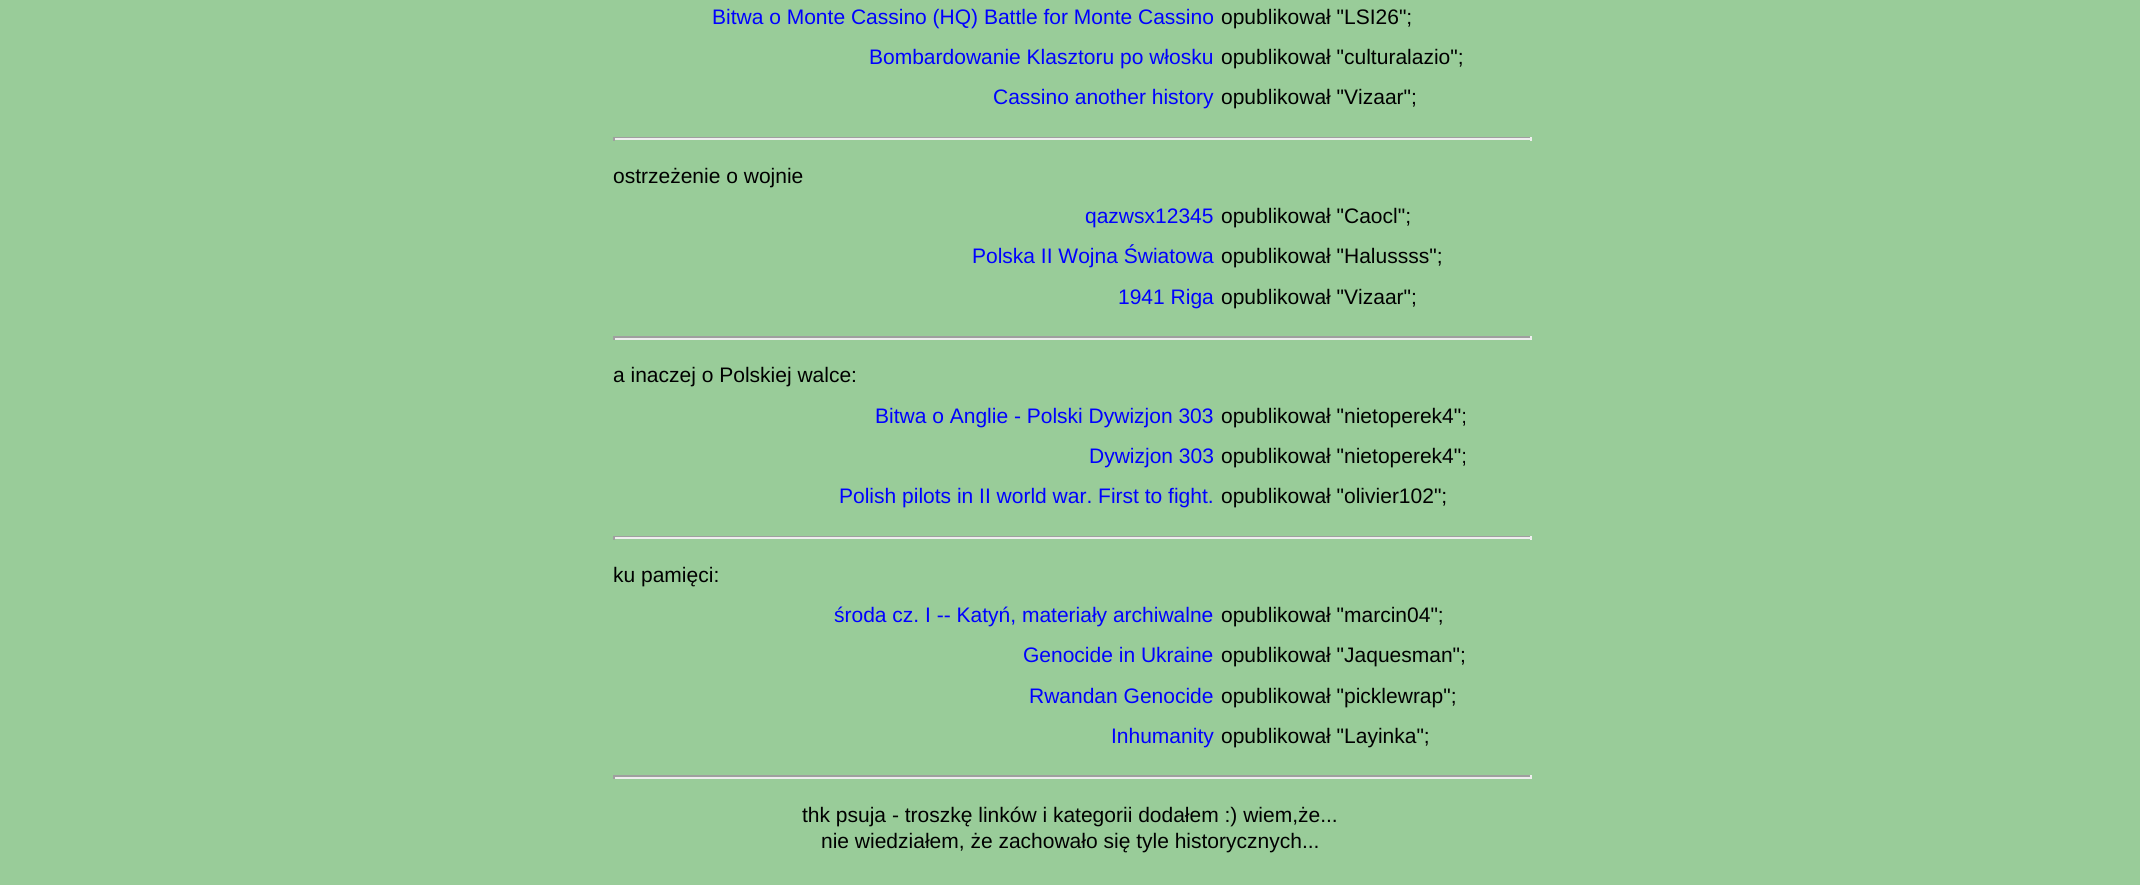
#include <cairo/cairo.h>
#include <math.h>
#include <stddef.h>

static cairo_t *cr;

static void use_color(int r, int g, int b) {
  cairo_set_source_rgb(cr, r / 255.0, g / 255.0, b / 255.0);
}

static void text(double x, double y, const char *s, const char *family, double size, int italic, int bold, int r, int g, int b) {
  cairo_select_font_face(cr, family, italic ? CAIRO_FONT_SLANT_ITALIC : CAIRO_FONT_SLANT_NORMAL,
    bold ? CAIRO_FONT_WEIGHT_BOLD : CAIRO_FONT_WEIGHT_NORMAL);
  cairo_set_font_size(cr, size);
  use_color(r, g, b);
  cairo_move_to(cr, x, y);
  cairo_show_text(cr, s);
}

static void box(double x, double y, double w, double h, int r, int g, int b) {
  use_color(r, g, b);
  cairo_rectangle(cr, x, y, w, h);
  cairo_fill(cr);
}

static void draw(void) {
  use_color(153, 204, 153);
  cairo_paint(cr);
  box(613, 137, 918, 1, 159, 159, 159);
  box(1530, 137, 2, 4, 238, 238, 238);
  box(613, 138, 918, 2, 238, 238, 238);
  box(613, 137, 2, 4, 159, 159, 159);
  box(613, 336, 918, 2, 159, 159, 159);
  box(1530, 336, 2, 4, 238, 238, 238);
  box(613, 338, 918, 2, 238, 238, 238);
  box(613, 336, 2, 4, 159, 159, 159);
  box(613, 536, 918, 1, 159, 159, 159);
  box(1530, 536, 2, 4, 238, 238, 238);
  box(613, 537, 918, 2, 238, 238, 238);
  box(613, 536, 2, 4, 159, 159, 159);
  box(613, 775, 918, 2, 159, 159, 159);
  box(1530, 775, 2, 4, 238, 238, 238);
  box(613, 777, 918, 2, 238, 238, 238);
  box(613, 775, 2, 4, 159, 159, 159);
  text(712, 24, "Bitwa o Monte Cassino (HQ) Battle for Monte Cassino", "Liberation Sans", 21, 0, 0, 0, 0, 255);
  text(1221, 24, "opublikował \"LSI26\";", "Liberation Sans", 21, 0, 0, 0, 0, 0);
  text(869, 64, "Bombardowanie Klasztoru po włosku", "Liberation Sans", 21, 0, 0, 0, 0, 255);
  text(1221, 64, "opublikował \"culturalazio\";", "Liberation Sans", 21, 0, 0, 0, 0, 0);
  text(993, 104, "Cassino another history", "Liberation Sans", 21, 0, 0, 0, 0, 255);
  text(1221, 104, "opublikował \"Vizaar\";", "Liberation Sans", 21, 0, 0, 0, 0, 0);
  text(613, 183, "ostrzeżenie o wojnie", "Liberation Sans", 21, 0, 0, 0, 0, 0);
  text(1085, 223, "qazwsx12345", "Liberation Sans", 21, 0, 0, 0, 0, 255);
  text(1221, 223, "opublikował \"Caocl\";", "Liberation Sans", 21, 0, 0, 0, 0, 0);
  text(972, 263, "Polska II Wojna Światowa", "Liberation Sans", 21, 0, 0, 0, 0, 255);
  text(1221, 263, "opublikował \"Halussss\";", "Liberation Sans", 21, 0, 0, 0, 0, 0);
  text(1118, 304, "1941 Riga", "Liberation Sans", 21, 0, 0, 0, 0, 255);
  text(1221, 304, "opublikował \"Vizaar\";", "Liberation Sans", 21, 0, 0, 0, 0, 0);
  text(613, 382, "a inaczej o Polskiej walce:", "Liberation Sans", 21, 0, 0, 0, 0, 0);
  text(875, 423, "Bitwa o Anglie - Polski Dywizjon 303", "Liberation Sans", 21, 0, 0, 0, 0, 255);
  text(1221, 423, "opublikował \"nietoperek4\";", "Liberation Sans", 21, 0, 0, 0, 0, 0);
  text(1089, 463, "Dywizjon 303", "Liberation Sans", 21, 0, 0, 0, 0, 255);
  text(1221, 463, "opublikował \"nietoperek4\";", "Liberation Sans", 21, 0, 0, 0, 0, 0);
  text(839, 503, "Polish pilots in II world war. First to fight.", "Liberation Sans", 21, 0, 0, 0, 0, 255);
  text(1221, 503, "opublikował \"olivier102\";", "Liberation Sans", 21, 0, 0, 0, 0, 0);
  text(613, 582, "ku pamięci:", "Liberation Sans", 21, 0, 0, 0, 0, 0);
  text(834, 622, "środa cz. I -- Katyń, materiały archiwalne", "Liberation Sans", 21, 0, 0, 0, 0, 255);
  text(1221, 622, "opublikował \"marcin04\";", "Liberation Sans", 21, 0, 0, 0, 0, 0);
  text(1023, 662, "Genocide in Ukraine", "Liberation Sans", 21, 0, 0, 0, 0, 255);
  text(1221, 662, "opublikował \"Jaquesman\";", "Liberation Sans", 21, 0, 0, 0, 0, 0);
  text(1029, 703, "Rwandan Genocide", "Liberation Sans", 21, 0, 0, 0, 0, 255);
  text(1221, 703, "opublikował \"picklewrap\";", "Liberation Sans", 21, 0, 0, 0, 0, 0);
  text(1111, 743, "Inhumanity", "Liberation Sans", 21, 0, 0, 0, 0, 255);
  text(1221, 743, "opublikował \"Layinka\";", "Liberation Sans", 21, 0, 0, 0, 0, 0);
  text(802, 822, "thk psuja - troszkę linków i kategorii dodałem :) wiem,że...", "Liberation Sans", 21, 0, 0, 0, 0, 0);
  text(821, 848, "nie wiedziałem, że zachowało się tyle historycznych...", "Liberation Sans", 21, 0, 0, 0, 0, 0);
}

int main(void) {
  cairo_surface_t *surface = cairo_image_surface_create(CAIRO_FORMAT_RGB24, 2140, 885);
  cr = cairo_create(surface);
  cairo_font_options_t *options = cairo_font_options_create();
  cairo_font_options_set_hint_metrics(options, CAIRO_HINT_METRICS_OFF);
  cairo_font_options_set_hint_style(options, CAIRO_HINT_STYLE_NONE);
  cairo_set_font_options(cr, options);
  cairo_set_miter_limit(cr, 4);
  draw();
  cairo_surface_write_to_png(surface, "out.png");
  cairo_font_options_destroy(options);
  cairo_destroy(cr);
  cairo_surface_destroy(surface);
  return 0;
}
